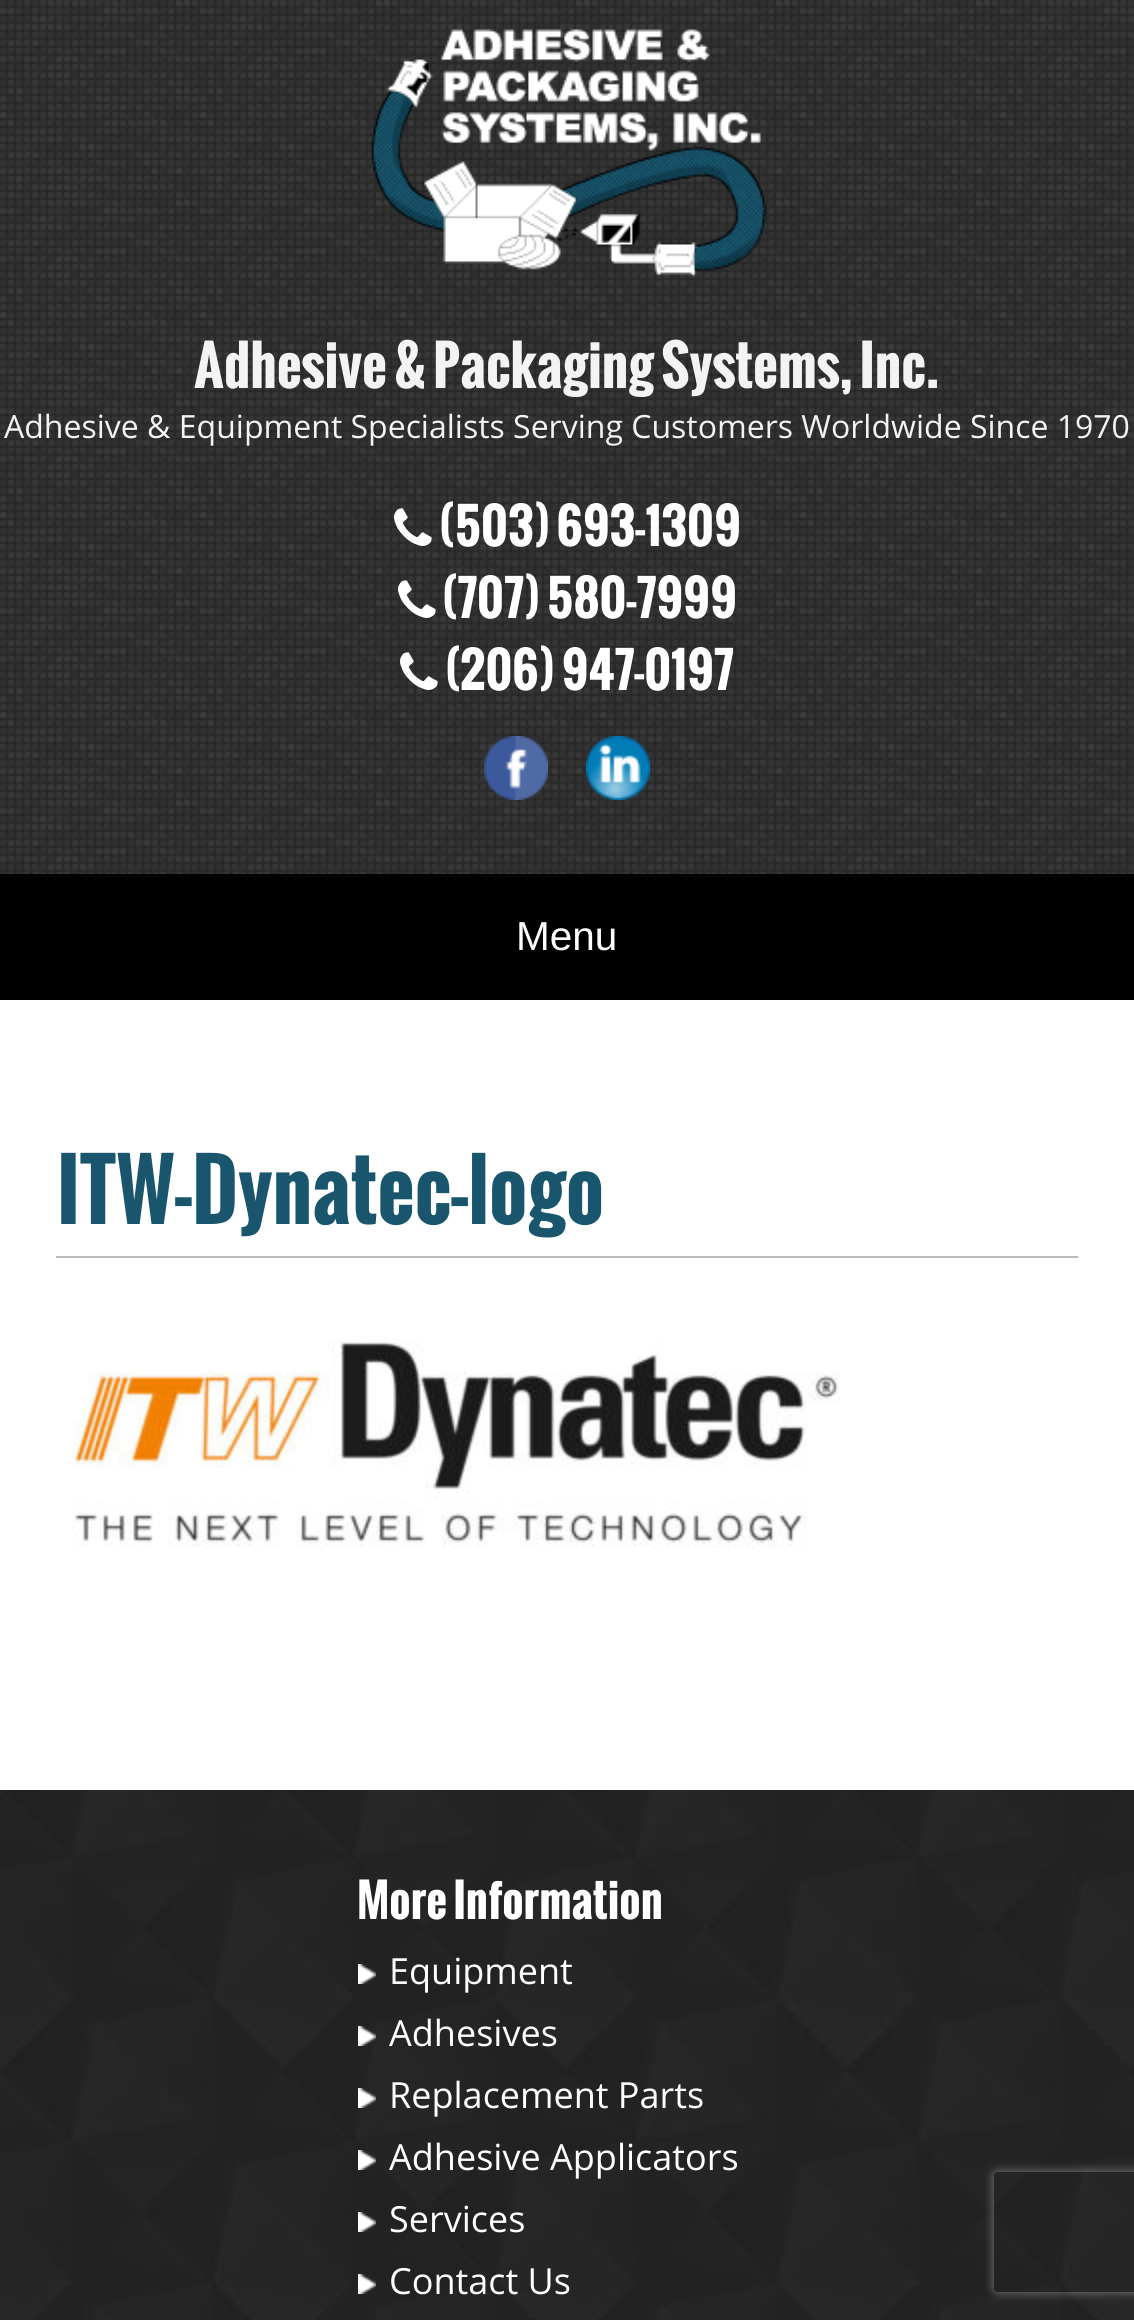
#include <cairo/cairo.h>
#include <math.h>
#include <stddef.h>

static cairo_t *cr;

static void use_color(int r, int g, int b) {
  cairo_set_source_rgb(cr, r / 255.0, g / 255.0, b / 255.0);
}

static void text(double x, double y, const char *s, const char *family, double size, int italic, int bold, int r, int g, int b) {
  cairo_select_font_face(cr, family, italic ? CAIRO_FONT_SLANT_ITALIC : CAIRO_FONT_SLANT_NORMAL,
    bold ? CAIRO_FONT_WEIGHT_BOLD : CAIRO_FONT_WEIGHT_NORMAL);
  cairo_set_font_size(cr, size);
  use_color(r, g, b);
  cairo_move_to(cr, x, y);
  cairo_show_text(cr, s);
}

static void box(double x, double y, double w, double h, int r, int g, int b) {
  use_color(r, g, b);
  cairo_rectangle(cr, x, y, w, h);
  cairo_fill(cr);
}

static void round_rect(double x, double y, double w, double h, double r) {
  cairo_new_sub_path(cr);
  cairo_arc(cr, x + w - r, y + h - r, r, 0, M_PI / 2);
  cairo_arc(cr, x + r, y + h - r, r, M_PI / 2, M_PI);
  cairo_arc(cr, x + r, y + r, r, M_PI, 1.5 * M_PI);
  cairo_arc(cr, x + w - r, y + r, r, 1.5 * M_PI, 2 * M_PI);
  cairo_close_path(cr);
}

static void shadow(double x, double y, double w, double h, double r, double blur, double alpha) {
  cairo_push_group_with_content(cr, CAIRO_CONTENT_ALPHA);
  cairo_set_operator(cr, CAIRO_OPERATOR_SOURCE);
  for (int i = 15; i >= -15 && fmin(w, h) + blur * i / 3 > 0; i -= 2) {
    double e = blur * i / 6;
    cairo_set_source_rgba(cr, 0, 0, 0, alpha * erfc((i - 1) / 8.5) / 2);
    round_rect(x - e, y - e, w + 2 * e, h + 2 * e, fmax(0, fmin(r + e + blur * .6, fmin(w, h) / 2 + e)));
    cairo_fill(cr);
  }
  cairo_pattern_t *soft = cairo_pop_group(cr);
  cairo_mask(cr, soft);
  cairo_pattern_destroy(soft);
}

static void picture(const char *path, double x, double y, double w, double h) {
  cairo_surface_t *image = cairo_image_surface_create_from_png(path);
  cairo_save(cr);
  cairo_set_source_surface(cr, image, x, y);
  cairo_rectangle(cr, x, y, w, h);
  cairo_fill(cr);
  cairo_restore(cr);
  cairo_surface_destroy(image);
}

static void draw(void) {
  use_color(255, 255, 255);
  cairo_paint(cr);
  picture("img_01.png", 0, 0, 1134, 874);
  picture("img_02.png", 371, 29, 396, 248);
  picture("img_03.png", 394, 508, 38, 38);
  picture("img_04.png", 398, 580, 38, 38);
  picture("img_05.png", 400, 652, 38, 38);
  picture("img_06.png", 484, 736, 64, 64);
  picture("img_07.png", 586, 736, 64, 64);
  box(0, 874, 1134, 126, 0, 0, 0);
  box(56, 1256, 1022, 2, 185, 185, 185);
  picture("img_08.png", 71, 1340, 769, 208);
  picture("img_09.png", 0, 1790, 1134, 530);
  picture("img_10.png", 358, 1964, 18, 20);
  picture("img_11.png", 358, 2026, 18, 20);
  picture("img_12.png", 358, 2088, 18, 20);
  picture("img_13.png", 358, 2150, 18, 20);
  picture("img_10.png", 358, 2212, 18, 20);
  picture("img_10.png", 358, 2274, 18, 20);
  cairo_save(cr);
  cairo_set_fill_rule(cr, CAIRO_FILL_RULE_EVEN_ODD);
  cairo_new_path(cr);
  cairo_move_to(cr, 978, 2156);
  cairo_line_to(cr, 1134, 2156);
  cairo_line_to(cr, 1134, 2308);
  cairo_line_to(cr, 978, 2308);
  cairo_close_path(cr);
  cairo_move_to(cr, 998, 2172);
  cairo_line_to(cr, 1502, 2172);
  cairo_curve_to(cr, 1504, 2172, 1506, 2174, 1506, 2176);
  cairo_line_to(cr, 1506, 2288);
  cairo_curve_to(cr, 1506, 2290, 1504, 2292, 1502, 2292);
  cairo_line_to(cr, 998, 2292);
  cairo_curve_to(cr, 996, 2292, 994, 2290, 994, 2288);
  cairo_line_to(cr, 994, 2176);
  cairo_curve_to(cr, 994, 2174, 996, 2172, 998, 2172);
  cairo_close_path(cr);
  cairo_clip(cr);
  use_color(128, 128, 128);
  shadow(994, 2172, 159, 120, 4, 5, 1);
  cairo_restore(cr);
  text(194, 388, "Adhesive & Packaging Systems, Inc.", "Oswald", 54, 0, 1, 243, 243, 243);
  text(4, 438, "Adhesive & Equipment Specialists Serving Customers Worldwide Since 1970", "Open Sans", 32, 0, 0, 243, 243, 243);
  text(438, 546, "(503) 693-1309", "Oswald", 48, 0, 1, 255, 255, 255);
  text(441, 618, "(707) 580-7999", "Oswald", 48, 0, 1, 255, 255, 255);
  text(444, 690, "(206) 947-0197", "Oswald", 48, 0, 1, 255, 255, 255);
  text(516, 950, "Menu", "Liberation Sans", 40.5, 0, 0, 255, 255, 255);
  text(57, 1224, "ITW-Dynatec-logo", "Oswald", 81, 0, 1, 25, 86, 109);
  text(357, 1919, "More Information", "Oswald", 45, 0, 1, 255, 255, 255);
  text(389, 1984, "Equipment", "Open Sans", 36, 0, 0, 255, 255, 255);
  text(389, 2046, "Adhesives", "Open Sans", 36, 0, 0, 255, 255, 255);
  text(389, 2108, "Replacement Parts", "Open Sans", 36, 0, 0, 255, 255, 255);
  text(389, 2170, "Adhesive Applicators", "Open Sans", 36, 0, 0, 255, 255, 255);
  text(389, 2232, "Services", "Open Sans", 36, 0, 0, 255, 255, 255);
  text(389, 2294, "Contact Us", "Open Sans", 36, 0, 0, 255, 255, 255);
}

int main(void) {
  cairo_surface_t *surface = cairo_image_surface_create(CAIRO_FORMAT_RGB24, 1134, 2320);
  cr = cairo_create(surface);
  cairo_font_options_t *options = cairo_font_options_create();
  cairo_font_options_set_hint_metrics(options, CAIRO_HINT_METRICS_OFF);
  cairo_font_options_set_hint_style(options, CAIRO_HINT_STYLE_NONE);
  cairo_set_font_options(cr, options);
  cairo_set_miter_limit(cr, 4);
  draw();
  cairo_surface_write_to_png(surface, "out.png");
  cairo_font_options_destroy(options);
  cairo_destroy(cr);
  cairo_surface_destroy(surface);
  return 0;
}
